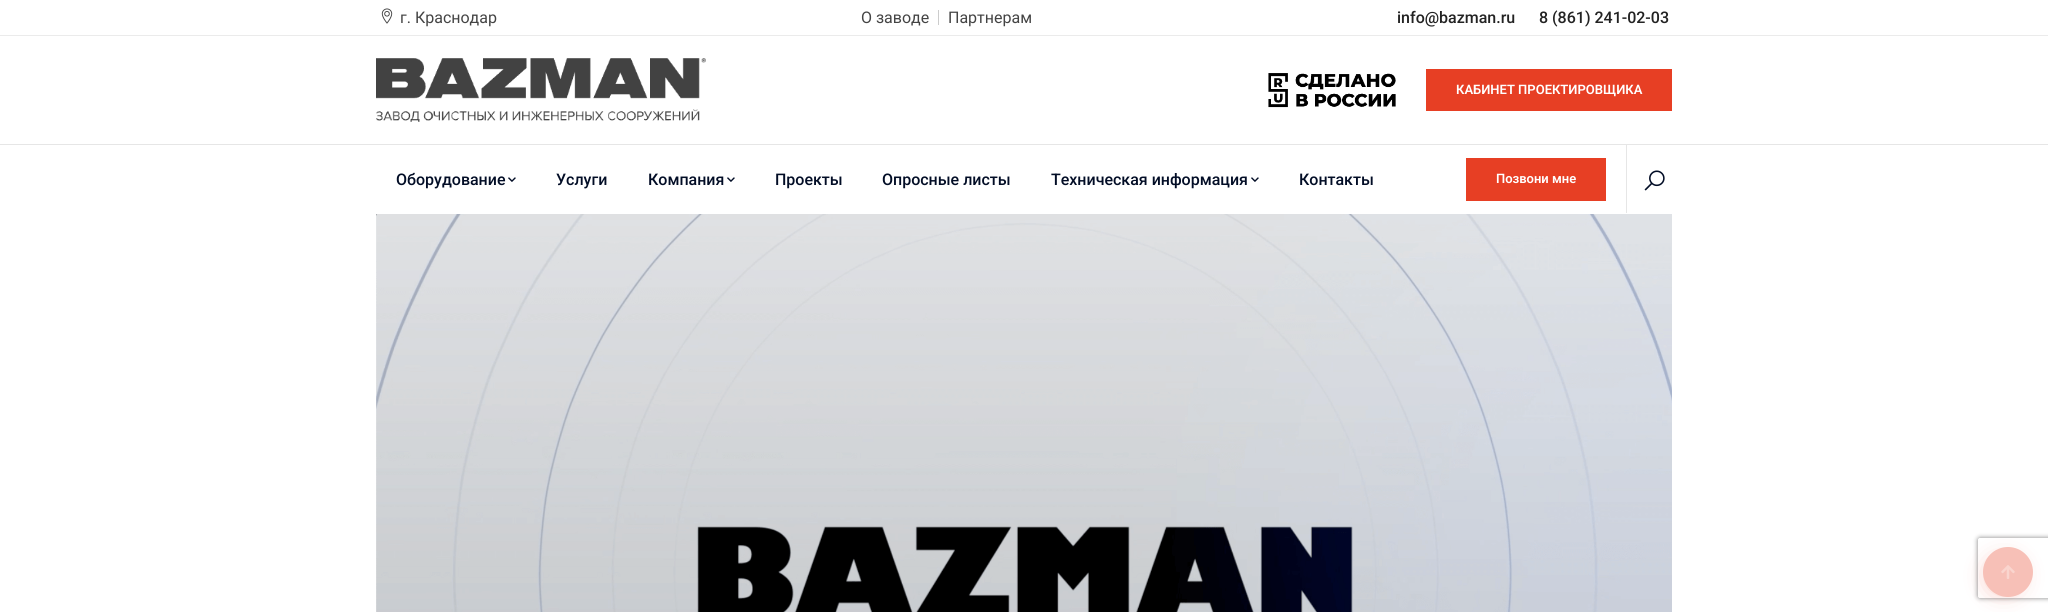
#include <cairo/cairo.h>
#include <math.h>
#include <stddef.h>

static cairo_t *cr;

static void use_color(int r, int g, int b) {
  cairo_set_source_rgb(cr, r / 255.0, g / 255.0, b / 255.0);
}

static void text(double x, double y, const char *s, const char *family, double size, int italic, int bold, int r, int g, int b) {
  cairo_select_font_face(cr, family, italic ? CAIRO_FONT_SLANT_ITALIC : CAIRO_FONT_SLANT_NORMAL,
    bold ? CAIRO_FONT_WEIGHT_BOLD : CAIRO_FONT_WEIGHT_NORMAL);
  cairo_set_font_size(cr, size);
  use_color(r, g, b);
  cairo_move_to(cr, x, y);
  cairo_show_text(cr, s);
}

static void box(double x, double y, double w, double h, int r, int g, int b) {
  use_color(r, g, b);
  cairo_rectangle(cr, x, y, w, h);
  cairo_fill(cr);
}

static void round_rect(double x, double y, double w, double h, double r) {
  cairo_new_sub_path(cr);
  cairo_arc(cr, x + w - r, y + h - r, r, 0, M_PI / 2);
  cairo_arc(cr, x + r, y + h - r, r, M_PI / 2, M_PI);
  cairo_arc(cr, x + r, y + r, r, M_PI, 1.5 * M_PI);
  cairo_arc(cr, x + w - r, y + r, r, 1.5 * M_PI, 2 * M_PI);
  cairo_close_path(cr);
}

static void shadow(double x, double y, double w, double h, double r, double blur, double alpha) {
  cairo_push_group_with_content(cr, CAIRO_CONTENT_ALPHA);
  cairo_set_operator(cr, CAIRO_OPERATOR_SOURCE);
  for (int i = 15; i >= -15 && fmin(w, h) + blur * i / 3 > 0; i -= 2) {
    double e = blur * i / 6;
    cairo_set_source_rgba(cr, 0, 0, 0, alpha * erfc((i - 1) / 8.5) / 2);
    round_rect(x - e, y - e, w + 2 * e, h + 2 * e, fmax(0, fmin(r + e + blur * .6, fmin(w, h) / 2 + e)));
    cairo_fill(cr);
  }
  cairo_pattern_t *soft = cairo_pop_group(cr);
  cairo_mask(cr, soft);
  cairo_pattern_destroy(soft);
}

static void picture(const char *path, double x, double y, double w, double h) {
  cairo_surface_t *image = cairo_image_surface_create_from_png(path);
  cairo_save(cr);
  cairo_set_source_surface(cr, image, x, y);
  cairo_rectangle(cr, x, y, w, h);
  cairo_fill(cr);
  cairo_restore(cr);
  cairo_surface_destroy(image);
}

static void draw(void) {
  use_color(255, 255, 255);
  cairo_paint(cr);
  box(0, 35, 2048, 1, 235, 235, 235);
  picture("img_01.png", 381, 8, 12, 16);
  box(938, 10, 1, 15, 204, 204, 204);
  box(0, 144, 2048, 1, 230, 230, 230);
  picture("img_02.png", 376, 58, 330, 64);
  picture("img_03.png", 1268, 73, 128, 35);
  box(1426, 69, 246, 42, 231, 63, 36);
  picture("img_04.png", 508, 177, 8, 5);
  picture("img_04.png", 727, 177, 8, 5);
  picture("img_04.png", 1251, 177, 8, 5);
  box(1466, 158, 140, 43, 231, 63, 36);
  box(1626, 145, 1, 68, 230, 230, 230);
  picture("img_05.png", 1644, 170, 21, 21);
  picture("img_06.png", 376, 214, 1296, 398);
  use_color(231, 63, 36);
  shadow(1989, 561, 30, 30, 15, 12, 0.33);
  cairo_save(cr);
  cairo_set_fill_rule(cr, CAIRO_FILL_RULE_EVEN_ODD);
  cairo_new_path(cr);
  cairo_move_to(cr, 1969, 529);
  cairo_line_to(cr, 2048, 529);
  cairo_line_to(cr, 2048, 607);
  cairo_line_to(cr, 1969, 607);
  cairo_close_path(cr);
  cairo_move_to(cr, 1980, 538);
  cairo_line_to(cr, 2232, 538);
  cairo_curve_to(cr, 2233, 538, 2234, 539, 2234, 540);
  cairo_line_to(cr, 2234, 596);
  cairo_curve_to(cr, 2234, 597, 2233, 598, 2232, 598);
  cairo_line_to(cr, 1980, 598);
  cairo_curve_to(cr, 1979, 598, 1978, 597, 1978, 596);
  cairo_line_to(cr, 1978, 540);
  cairo_curve_to(cr, 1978, 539, 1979, 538, 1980, 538);
  cairo_close_path(cr);
  cairo_clip(cr);
  use_color(128, 128, 128);
  shadow(1978, 538, 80, 60, 2, 2.5, 1);
  cairo_restore(cr);
  use_color(247, 192, 183);
  cairo_arc(cr, 2008, 572, 25, 0, 2 * M_PI);
  cairo_fill(cr);
  picture("img_07.png", 2001, 565, 14, 14);
  text(400, 23, "г. Краснодар", "Roboto", 16, 0, 0, 68, 68, 68);
  text(861, 23, "О заводе", "Roboto", 16, 0, 0, 68, 68, 68);
  text(948, 23, "Партнерам", "Roboto", 16, 0, 0, 68, 68, 68);
  text(1397, 23, "info@bazman.ru", "Roboto Medium", 16, 0, 0, 35, 35, 35);
  text(1539, 23, "8 (861) 241-02-03", "Roboto Medium", 16, 0, 0, 35, 35, 35);
  text(1456, 94, "КАБИНЕТ ПРОЕКТИРОВЩИКА", "Roboto SemiBold", 13, 0, 0, 255, 255, 255);
  text(396, 185, "Оборудование", "Roboto Medium", 16, 0, 0, 2, 13, 38);
  text(556, 185, "Услуги", "Roboto Medium", 16, 0, 0, 2, 13, 38);
  text(648, 185, "Компания", "Roboto Medium", 16, 0, 0, 2, 13, 38);
  text(775, 185, "Проекты", "Roboto Medium", 16, 0, 0, 2, 13, 38);
  text(882, 185, "Опросные листы", "Roboto Medium", 16, 0, 0, 2, 13, 38);
  text(1051, 185, "Техническая информация", "Roboto Medium", 16, 0, 0, 2, 13, 38);
  text(1299, 185, "Контакты", "Roboto Medium", 16, 0, 0, 2, 13, 38);
  text(1496, 183, "Позвони мне", "Roboto SemiBold", 13, 0, 0, 255, 255, 255);
}

int main(void) {
  cairo_surface_t *surface = cairo_image_surface_create(CAIRO_FORMAT_RGB24, 2048, 612);
  cr = cairo_create(surface);
  cairo_font_options_t *options = cairo_font_options_create();
  cairo_font_options_set_hint_metrics(options, CAIRO_HINT_METRICS_OFF);
  cairo_font_options_set_hint_style(options, CAIRO_HINT_STYLE_NONE);
  cairo_set_font_options(cr, options);
  cairo_set_miter_limit(cr, 4);
  draw();
  cairo_surface_write_to_png(surface, "out.png");
  cairo_font_options_destroy(options);
  cairo_destroy(cr);
  cairo_surface_destroy(surface);
  return 0;
}
